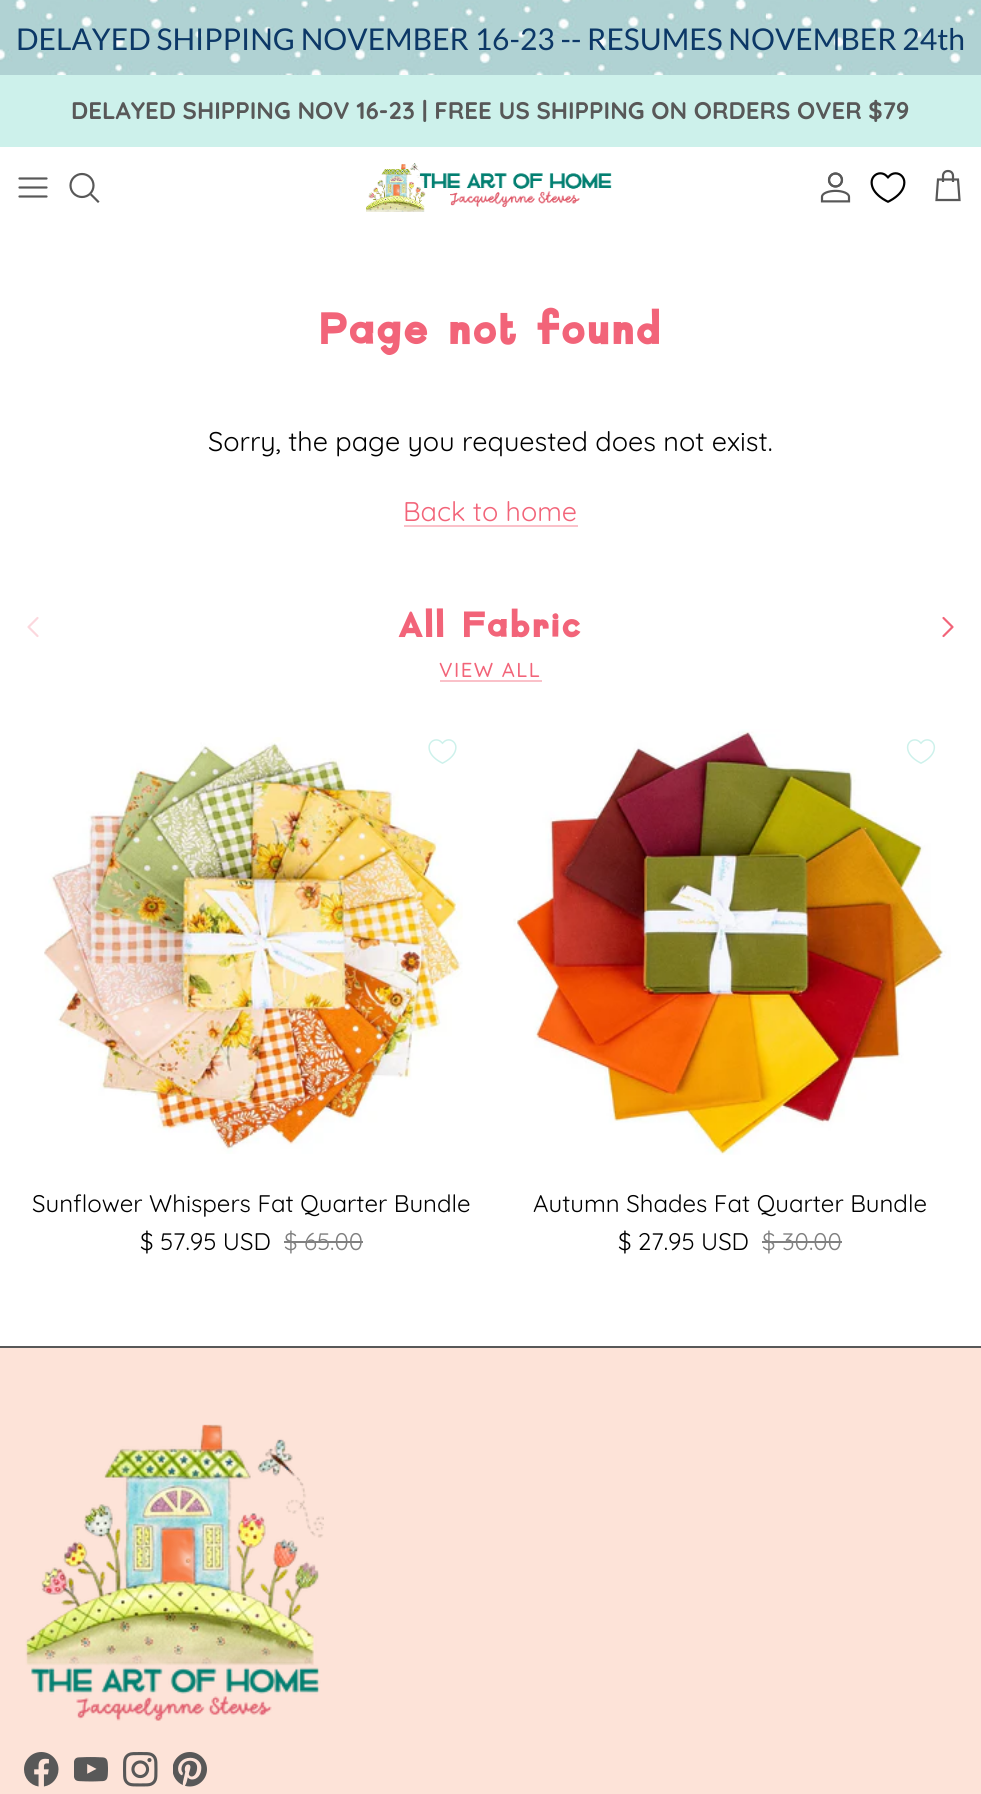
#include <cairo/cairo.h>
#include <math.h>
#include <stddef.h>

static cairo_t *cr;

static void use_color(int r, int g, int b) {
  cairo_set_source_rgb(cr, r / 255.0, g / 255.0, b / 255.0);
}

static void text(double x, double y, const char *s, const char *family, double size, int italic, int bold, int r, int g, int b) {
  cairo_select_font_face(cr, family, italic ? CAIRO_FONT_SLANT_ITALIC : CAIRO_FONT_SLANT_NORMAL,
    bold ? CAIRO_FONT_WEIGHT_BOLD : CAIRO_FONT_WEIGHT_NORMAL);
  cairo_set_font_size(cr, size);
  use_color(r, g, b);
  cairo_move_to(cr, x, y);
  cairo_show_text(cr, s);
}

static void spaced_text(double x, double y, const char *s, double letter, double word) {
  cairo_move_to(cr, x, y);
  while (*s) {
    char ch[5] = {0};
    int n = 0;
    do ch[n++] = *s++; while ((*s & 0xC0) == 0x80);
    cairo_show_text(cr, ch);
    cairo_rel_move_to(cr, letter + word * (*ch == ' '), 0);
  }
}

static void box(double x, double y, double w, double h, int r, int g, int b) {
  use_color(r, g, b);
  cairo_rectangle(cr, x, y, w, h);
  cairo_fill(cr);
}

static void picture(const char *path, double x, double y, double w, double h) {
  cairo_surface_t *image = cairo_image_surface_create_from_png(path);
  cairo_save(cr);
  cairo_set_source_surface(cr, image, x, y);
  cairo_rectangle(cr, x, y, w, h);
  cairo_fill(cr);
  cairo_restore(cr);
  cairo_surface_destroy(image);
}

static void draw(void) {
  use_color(255, 255, 255);
  cairo_paint(cr);
  picture("img_01.png", 0, 0, 981, 75);
  box(0, 75, 981, 72, 205, 241, 235);
  cairo_new_path(cr);
  cairo_move_to(cr, 19.5, 187.5);
  cairo_line_to(cr, 46.5, 187.5);
  cairo_move_to(cr, 19.5, 178.5);
  cairo_line_to(cr, 46.5, 178.5);
  cairo_move_to(cr, 19.5, 196.5);
  cairo_line_to(cr, 46.5, 196.5);
  use_color(88, 88, 88);
  cairo_set_line_width(cr, 2.2);
  cairo_set_line_cap(cr, CAIRO_LINE_CAP_ROUND);
  cairo_set_line_join(cr, CAIRO_LINE_JOIN_ROUND);
  cairo_stroke(cr);
  cairo_arc(cr, 82, 185.5, 11.5, 0, 2 * M_PI);
  cairo_set_line_cap(cr, CAIRO_LINE_CAP_BUTT);
  cairo_set_line_join(cr, CAIRO_LINE_JOIN_MITER);
  cairo_stroke(cr);
  cairo_new_path(cr);
  cairo_move_to(cr, 91.5, 195);
  cairo_line_to(cr, 98, 201.5);
  cairo_set_line_cap(cr, CAIRO_LINE_CAP_SQUARE);
  cairo_stroke(cr);
  picture("img_02.png", 366, 163, 246, 49);
  picture("img_03.png", 820, 172, 31, 31);
  picture("img_04.png", 870, 172, 36, 31);
  cairo_new_path(cr);
  cairo_move_to(cr, 953, 182);
  cairo_line_to(cr, 953, 176);
  cairo_curve_to(cr, 953, 173, 951, 171, 948, 171);
  cairo_curve_to(cr, 945, 171, 943, 173, 943, 176);
  cairo_line_to(cr, 943, 182);
  cairo_move_to(cr, 938, 179.5);
  cairo_line_to(cr, 958, 179.5);
  cairo_line_to(cr, 959.5, 200);
  cairo_line_to(cr, 936.5, 200);
  cairo_close_path(cr);
  cairo_set_line_cap(cr, CAIRO_LINE_CAP_BUTT);
  cairo_stroke(cr);
  box(404, 525, 174, 2, 250, 193, 201);
  cairo_new_path(cr);
  cairo_move_to(cr, 37.5, 636);
  cairo_line_to(cr, 28.5, 627);
  cairo_line_to(cr, 37.5, 618);
  use_color(252, 216, 222);
  cairo_set_line_cap(cr, CAIRO_LINE_CAP_ROUND);
  cairo_set_line_join(cr, CAIRO_LINE_JOIN_ROUND);
  cairo_stroke(cr);
  cairo_new_path(cr);
  cairo_move_to(cr, 943.5, 636);
  cairo_line_to(cr, 952.5, 627);
  cairo_line_to(cr, 943.5, 618);
  use_color(242, 100, 121);
  cairo_stroke(cr);
  box(440, 680, 102, 2, 250, 193, 201);
  picture("img_05.png", 44, 737, 419, 417);
  picture("img_06.png", 428, 739, 29, 25);
  box(284, 1241, 79, 2, 128, 128, 128);
  picture("img_07.png", 513, 729, 438, 426);
  picture("img_08.png", 906, 739, 30, 25);
  box(762, 1241, 80, 2, 128, 128, 128);
  box(0, 1348, 981, 446, 253, 227, 216);
  box(0, 1346, 981, 2, 88, 88, 88);
  picture("img_09.png", 25, 1424, 299, 297);
  picture("img_10.png", 24, 1752, 35, 35);
  picture("img_11.png", 74, 1757, 34, 25);
  picture("img_12.png", 123, 1752, 35, 35);
  picture("img_13.png", 173, 1752, 34, 35);
  text(16, 50, "DELAYED SHIPPING NOVEMBER 16-23 -- RESUMES NOVEMBER 24th", "Lato", 30, 0, 0, 12, 56, 103);
  text(71, 119, "DELAYED SHIPPING NOV 16-23 | FREE US SHIPPING ON ORDERS OVER $79", "Quicksand", 24, 0, 1, 88, 88, 88);
  cairo_select_font_face(cr, "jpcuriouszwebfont", CAIRO_FONT_SLANT_NORMAL, CAIRO_FONT_WEIGHT_BOLD);
  cairo_set_font_size(cr, 43.5);
  use_color(242, 100, 121);
  spaced_text(319, 344, "Page not found", 3, 0);
  text(208, 451, "Sorry, the page you requested does not exist.", "Quicksand", 27, 0, 0, 0, 0, 0);
  text(403, 521, "Back to home", "Quicksand", 27, 0, 0, 242, 100, 121);
  cairo_select_font_face(cr, "jpcuriouszwebfont", CAIRO_FONT_SLANT_NORMAL, CAIRO_FONT_WEIGHT_BOLD);
  cairo_set_font_size(cr, 35);
  spaced_text(399, 637, "All Fabric", 3, 0);
  cairo_select_font_face(cr, "Quicksand Medium", CAIRO_FONT_SLANT_NORMAL, CAIRO_FONT_WEIGHT_NORMAL);
  cairo_set_font_size(cr, 20.25);
  spaced_text(439, 677, "VIEW ALL", 1.5, 0);
  text(32, 1212, "Sunflower Whispers Fat Quarter Bundle", "Quicksand", 24, 0, 0, 0, 0, 0);
  text(140, 1250, "$ 57.95 USD", "Quicksand", 24, 0, 0, 0, 0, 0);
  text(284, 1250, "$ 65.00", "Quicksand", 24, 0, 0, 128, 128, 128);
  text(533, 1212, "Autumn Shades Fat Quarter Bundle", "Quicksand", 24, 0, 0, 0, 0, 0);
  text(618, 1250, "$ 27.95 USD", "Quicksand", 24, 0, 0, 0, 0, 0);
  text(762, 1250, "$ 30.00", "Quicksand", 24, 0, 0, 128, 128, 128);
}

int main(void) {
  cairo_surface_t *surface = cairo_image_surface_create(CAIRO_FORMAT_RGB24, 981, 1794);
  cr = cairo_create(surface);
  cairo_font_options_t *options = cairo_font_options_create();
  cairo_font_options_set_hint_metrics(options, CAIRO_HINT_METRICS_OFF);
  cairo_font_options_set_hint_style(options, CAIRO_HINT_STYLE_NONE);
  cairo_set_font_options(cr, options);
  cairo_set_miter_limit(cr, 4);
  draw();
  cairo_surface_write_to_png(surface, "out.png");
  cairo_font_options_destroy(options);
  cairo_destroy(cr);
  cairo_surface_destroy(surface);
  return 0;
}
